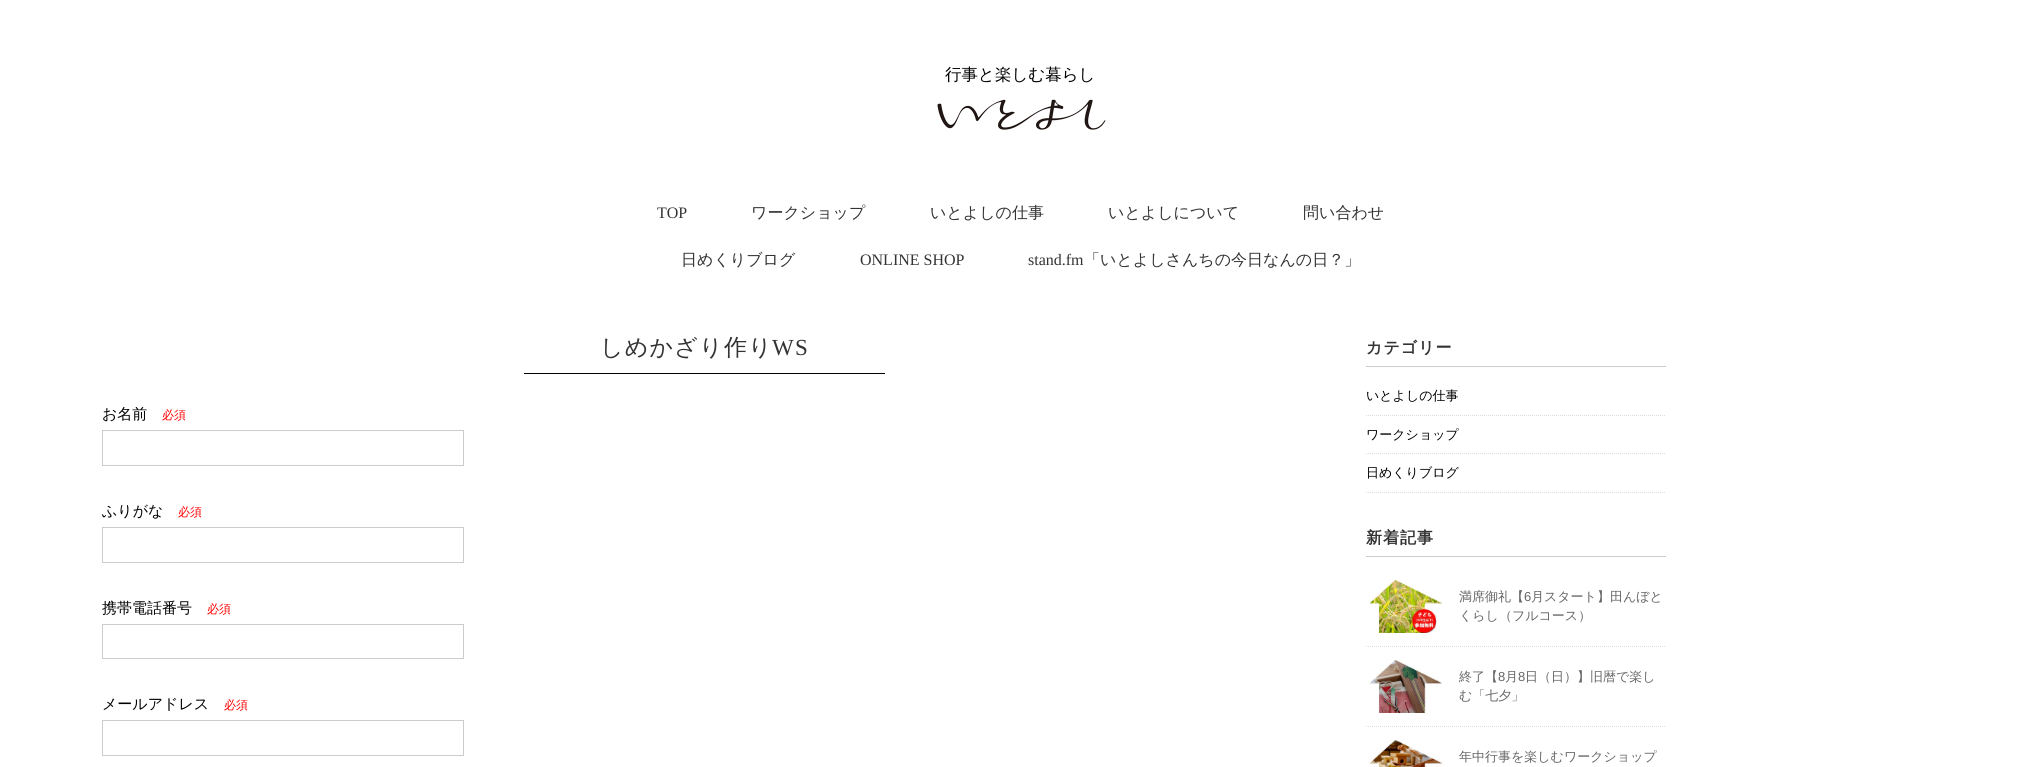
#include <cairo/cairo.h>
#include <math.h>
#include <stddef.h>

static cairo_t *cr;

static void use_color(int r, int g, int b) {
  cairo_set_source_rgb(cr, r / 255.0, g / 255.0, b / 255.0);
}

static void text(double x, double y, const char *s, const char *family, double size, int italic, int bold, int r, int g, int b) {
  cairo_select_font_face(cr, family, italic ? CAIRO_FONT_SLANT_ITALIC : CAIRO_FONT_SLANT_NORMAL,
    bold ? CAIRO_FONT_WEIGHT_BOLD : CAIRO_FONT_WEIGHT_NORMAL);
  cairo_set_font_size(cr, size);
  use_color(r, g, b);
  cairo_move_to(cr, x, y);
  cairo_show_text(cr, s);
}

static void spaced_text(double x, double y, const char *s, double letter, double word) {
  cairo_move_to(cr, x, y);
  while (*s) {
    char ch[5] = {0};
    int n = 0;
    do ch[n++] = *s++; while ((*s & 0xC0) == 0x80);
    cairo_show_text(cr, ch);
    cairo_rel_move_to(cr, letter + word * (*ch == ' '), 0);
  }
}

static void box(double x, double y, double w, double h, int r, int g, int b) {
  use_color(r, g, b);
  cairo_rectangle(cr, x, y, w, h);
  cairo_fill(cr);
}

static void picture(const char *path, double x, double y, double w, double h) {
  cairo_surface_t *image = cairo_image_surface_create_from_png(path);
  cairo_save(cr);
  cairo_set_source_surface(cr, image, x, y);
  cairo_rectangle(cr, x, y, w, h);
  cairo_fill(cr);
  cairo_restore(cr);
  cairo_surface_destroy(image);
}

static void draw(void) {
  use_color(255, 255, 255);
  cairo_paint(cr);
  picture("img_01.png", 937, 99, 169, 31);
  box(524, 373, 361, 1, 0, 0, 0);
  cairo_rectangle(cr, 102.5, 430.5, 361, 35);
  use_color(204, 204, 204);
  cairo_set_line_width(cr, 1);
  cairo_stroke(cr);
  cairo_rectangle(cr, 102.5, 527.5, 361, 35);
  cairo_stroke(cr);
  cairo_rectangle(cr, 102.5, 624.5, 361, 34);
  cairo_stroke(cr);
  cairo_rectangle(cr, 102.5, 720.5, 361, 35);
  cairo_stroke(cr);
  box(1366, 366, 300, 1, 204, 204, 204);
  cairo_new_path(cr);
  cairo_move_to(cr, 1366, 415.5);
  cairo_line_to(cr, 1666, 415.5);
  use_color(221, 221, 221);
  cairo_set_dash(cr, (double[]){1, 1}, 2, 0);
  cairo_stroke(cr);
  cairo_new_path(cr);
  cairo_move_to(cr, 1366, 453.5);
  cairo_line_to(cr, 1666, 453.5);
  cairo_stroke(cr);
  cairo_new_path(cr);
  cairo_move_to(cr, 1366, 492.5);
  cairo_line_to(cr, 1666, 492.5);
  cairo_stroke(cr);
  box(1366, 556, 300, 1, 204, 204, 204);
  cairo_new_path(cr);
  cairo_move_to(cr, 1366, 646.5);
  cairo_line_to(cr, 1666, 646.5);
  use_color(221, 221, 221);
  cairo_stroke(cr);
  picture("img_02.png", 1369, 580, 74, 53);
  cairo_new_path(cr);
  cairo_move_to(cr, 1366, 726.5);
  cairo_line_to(cr, 1666, 726.5);
  cairo_stroke(cr);
  picture("img_03.png", 1369, 660, 73, 53);
  picture("img_04.png", 1369, 740, 74, 27);
  text(945, 80, "行事と楽しむ暮らし", "WenQuanYi Zen Hei Medium", 16.5, 0, 0, 0, 0, 0);
  text(657, 218, "TOP", "Liberation Serif", 16, 0, 0, 51, 51, 51);
  text(751, 218, "ワークショップ", "WenQuanYi Zen Hei Medium", 16, 0, 0, 51, 51, 51);
  text(930, 218, "いとよしの仕事", "WenQuanYi Zen Hei Medium", 16, 0, 0, 51, 51, 51);
  text(1108, 218, "いとよしについて", "WenQuanYi Zen Hei Medium", 16, 0, 0, 51, 51, 51);
  text(1303, 218, "問い合わせ", "WenQuanYi Zen Hei Medium", 16, 0, 0, 51, 51, 51);
  text(681, 265, "日めくりブログ", "WenQuanYi Zen Hei Medium", 16, 0, 0, 51, 51, 51);
  text(860, 265, "ONLINE SHOP", "Liberation Serif", 16, 0, 0, 51, 51, 51);
  text(1028, 265, "stand.fm", "Liberation Serif", 16, 0, 0, 51, 51, 51);
  text(1084, 265, "「いとよしさんちの今日なんの日？」", "WenQuanYi Zen Hei Medium", 16, 0, 0, 51, 51, 51);
  cairo_set_font_size(cr, 23);
  spaced_text(600, 355, "しめかざり作り", 1.25, 0);
  cairo_select_font_face(cr, "Liberation Serif", CAIRO_FONT_SLANT_NORMAL, CAIRO_FONT_WEIGHT_NORMAL);
  spaced_text(772, 355, "WS", 1.25, 0);
  text(102, 419, "お名前", "WenQuanYi Zen Hei Medium", 15, 0, 0, 0, 0, 0);
  text(162, 419, "必須", "WenQuanYi Zen Hei Medium", 12, 0, 0, 255, 0, 0);
  text(102, 516, "ふりがな", "WenQuanYi Zen Hei Medium", 15, 0, 0, 0, 0, 0);
  text(178, 516, "必須", "WenQuanYi Zen Hei Medium", 12, 0, 0, 255, 0, 0);
  text(102, 613, "携帯電話番号", "WenQuanYi Zen Hei Medium", 15, 0, 0, 0, 0, 0);
  text(207, 613, "必須", "WenQuanYi Zen Hei Medium", 12, 0, 0, 255, 0, 0);
  text(102, 709, "メールアドレス", "WenQuanYi Zen Hei Medium", 15, 0, 0, 0, 0, 0);
  text(224, 709, "必須", "WenQuanYi Zen Hei Medium", 12, 0, 0, 255, 0, 0);
  cairo_select_font_face(cr, "WenQuanYi Zen Hei", CAIRO_FONT_SLANT_NORMAL, CAIRO_FONT_WEIGHT_BOLD);
  cairo_set_font_size(cr, 16);
  use_color(51, 51, 51);
  spaced_text(1366, 353, "カテゴリー", 1, 0);
  text(1366, 400, "いとよしの仕事", "WenQuanYi Zen Hei Medium", 13, 0, 0, 0, 0, 0);
  text(1366, 439, "ワークショップ", "WenQuanYi Zen Hei Medium", 13, 0, 0, 0, 0, 0);
  text(1366, 477, "日めくりブログ", "WenQuanYi Zen Hei Medium", 13, 0, 0, 0, 0, 0);
  cairo_select_font_face(cr, "WenQuanYi Zen Hei", CAIRO_FONT_SLANT_NORMAL, CAIRO_FONT_WEIGHT_BOLD);
  cairo_set_font_size(cr, 16);
  use_color(51, 51, 51);
  spaced_text(1366, 543, "新着記事", 1, 0);
  text(1459, 601, "満席御礼【", "WenQuanYi Zen Hei Medium", 13, 0, 0, 102, 102, 102);
  text(1524, 601, "6", "Liberation Sans", 13, 0, 0, 102, 102, 102);
  text(1531, 601, "月スタート】田んぼと", "WenQuanYi Zen Hei Medium", 13, 0, 0, 102, 102, 102);
  text(1459, 620, "くらし（フルコース）", "WenQuanYi Zen Hei Medium", 13, 0, 0, 102, 102, 102);
  text(1459, 681, "終了【", "WenQuanYi Zen Hei Medium", 13, 0, 0, 102, 102, 102);
  text(1498, 681, "8", "Liberation Sans", 13, 0, 0, 102, 102, 102);
  text(1505, 681, "月", "WenQuanYi Zen Hei Medium", 13, 0, 0, 102, 102, 102);
  text(1518, 681, "8", "Liberation Sans", 13, 0, 0, 102, 102, 102);
  text(1525, 681, "日（日）】旧暦で楽し", "WenQuanYi Zen Hei Medium", 13, 0, 0, 102, 102, 102);
  text(1459, 700, "む「七夕」", "WenQuanYi Zen Hei Medium", 13, 0, 0, 102, 102, 102);
  text(1459, 761, "年中行事を楽しむワークショップ", "WenQuanYi Zen Hei Medium", 13, 0, 0, 102, 102, 102);
}

int main(void) {
  cairo_surface_t *surface = cairo_image_surface_create(CAIRO_FORMAT_RGB24, 2041, 767);
  cr = cairo_create(surface);
  cairo_font_options_t *options = cairo_font_options_create();
  cairo_font_options_set_hint_metrics(options, CAIRO_HINT_METRICS_OFF);
  cairo_font_options_set_hint_style(options, CAIRO_HINT_STYLE_NONE);
  cairo_set_font_options(cr, options);
  cairo_set_miter_limit(cr, 4);
  draw();
  cairo_surface_write_to_png(surface, "out.png");
  cairo_font_options_destroy(options);
  cairo_destroy(cr);
  cairo_surface_destroy(surface);
  return 0;
}
